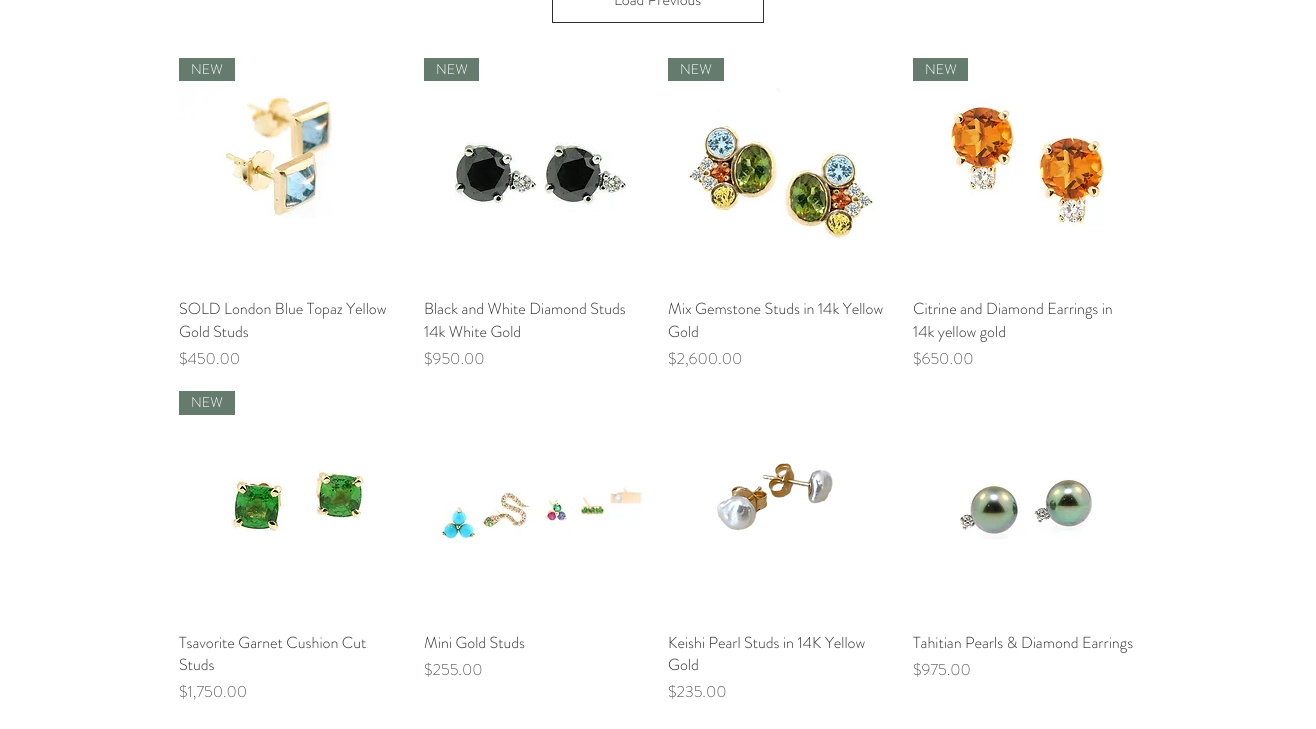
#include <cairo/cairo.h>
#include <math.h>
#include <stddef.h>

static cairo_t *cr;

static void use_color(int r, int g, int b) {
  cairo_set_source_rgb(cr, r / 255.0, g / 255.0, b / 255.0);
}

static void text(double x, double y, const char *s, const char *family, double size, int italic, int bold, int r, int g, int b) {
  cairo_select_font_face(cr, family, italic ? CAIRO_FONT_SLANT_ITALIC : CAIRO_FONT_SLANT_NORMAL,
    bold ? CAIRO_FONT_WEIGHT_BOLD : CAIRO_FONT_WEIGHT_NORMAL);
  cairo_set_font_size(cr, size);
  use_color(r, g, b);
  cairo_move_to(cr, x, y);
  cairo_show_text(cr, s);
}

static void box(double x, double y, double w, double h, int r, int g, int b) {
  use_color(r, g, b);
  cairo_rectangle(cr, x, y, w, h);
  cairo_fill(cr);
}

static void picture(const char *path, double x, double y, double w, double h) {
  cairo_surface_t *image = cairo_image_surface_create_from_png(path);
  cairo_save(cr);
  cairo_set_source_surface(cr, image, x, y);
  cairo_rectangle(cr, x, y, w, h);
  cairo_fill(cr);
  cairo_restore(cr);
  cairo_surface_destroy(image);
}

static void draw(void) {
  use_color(255, 255, 255);
  cairo_paint(cr);
  cairo_rectangle(cr, 552.5, -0.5, 211, 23);
  use_color(46, 48, 47);
  cairo_set_line_width(cr, 1);
  cairo_stroke(cr);
  picture("img_01.png", 179, 58, 153, 160);
  box(179, 58, 56, 23, 100, 123, 110);
  box(424, 58, 55, 23, 100, 123, 110);
  picture("img_02.png", 455, 142, 172, 70);
  box(668, 58, 56, 23, 100, 123, 110);
  picture("img_03.png", 688, 88, 187, 151);
  box(913, 58, 55, 23, 100, 123, 110);
  picture("img_04.png", 948, 105, 157, 121);
  box(179, 391, 56, 24, 100, 123, 110);
  picture("img_05.png", 231, 470, 136, 63);
  picture("img_06.png", 439, 487, 207, 56);
  picture("img_07.png", 717, 463, 116, 68);
  picture("img_08.png", 960, 479, 133, 61);
  text(614, 5, "Load Previous", "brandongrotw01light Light", 16, 0, 0, 46, 48, 47);
  text(191, 74, "NEW", "brandongrotw01light Light", 14, 0, 0, 255, 255, 255);
  text(179, 314, "SOLD London Blue Topaz Yellow", "brandongrotw01light Light", 16, 0, 0, 46, 48, 47);
  text(179, 337, "Gold Studs", "brandongrotw01light Light", 16, 0, 0, 46, 48, 47);
  text(179, 364, "$450.00", "brandongrotw01light Light", 16, 0, 0, 92, 95, 94);
  text(436, 74, "NEW", "brandongrotw01light Light", 14, 0, 0, 255, 255, 255);
  text(424, 314, "Black and White Diamond Studs", "brandongrotw01light Light", 16, 0, 0, 46, 48, 47);
  text(424, 337, "14k White Gold", "brandongrotw01light Light", 16, 0, 0, 46, 48, 47);
  text(424, 364, "$950.00", "brandongrotw01light Light", 16, 0, 0, 92, 95, 94);
  text(680, 74, "NEW", "brandongrotw01light Light", 14, 0, 0, 255, 255, 255);
  text(668, 314, "Mix Gemstone Studs in 14k Yellow", "brandongrotw01light Light", 16, 0, 0, 46, 48, 47);
  text(668, 337, "Gold", "brandongrotw01light Light", 16, 0, 0, 46, 48, 47);
  text(668, 364, "$2,600.00", "brandongrotw01light Light", 16, 0, 0, 92, 95, 94);
  text(925, 74, "NEW", "brandongrotw01light Light", 14, 0, 0, 255, 255, 255);
  text(913, 314, "Citrine and Diamond Earrings in", "brandongrotw01light Light", 16, 0, 0, 46, 48, 47);
  text(913, 337, "14k yellow gold", "brandongrotw01light Light", 16, 0, 0, 46, 48, 47);
  text(913, 364, "$650.00", "brandongrotw01light Light", 16, 0, 0, 92, 95, 94);
  text(191, 407, "NEW", "brandongrotw01light Light", 14, 0, 0, 255, 255, 255);
  text(179, 648, "Tsavorite Garnet Cushion Cut", "brandongrotw01light Light", 16, 0, 0, 46, 48, 47);
  text(179, 670, "Studs", "brandongrotw01light Light", 16, 0, 0, 46, 48, 47);
  text(179, 697, "$1,750.00", "brandongrotw01light Light", 16, 0, 0, 92, 95, 94);
  text(424, 648, "Mini Gold Studs", "brandongrotw01light Light", 16, 0, 0, 46, 48, 47);
  text(424, 675, "$255.00", "brandongrotw01light Light", 16, 0, 0, 92, 95, 94);
  text(668, 648, "Keishi Pearl Studs in 14K Yellow", "brandongrotw01light Light", 16, 0, 0, 46, 48, 47);
  text(668, 670, "Gold", "brandongrotw01light Light", 16, 0, 0, 46, 48, 47);
  text(668, 697, "$235.00", "brandongrotw01light Light", 16, 0, 0, 92, 95, 94);
  text(913, 648, "Tahitian Pearls & Diamond Earrings", "brandongrotw01light Light", 16, 0, 0, 46, 48, 47);
  text(913, 675, "$975.00", "brandongrotw01light Light", 16, 0, 0, 92, 95, 94);
}

int main(void) {
  cairo_surface_t *surface = cairo_image_surface_create(CAIRO_FORMAT_RGB24, 1316, 729);
  cr = cairo_create(surface);
  cairo_font_options_t *options = cairo_font_options_create();
  cairo_font_options_set_hint_metrics(options, CAIRO_HINT_METRICS_OFF);
  cairo_font_options_set_hint_style(options, CAIRO_HINT_STYLE_NONE);
  cairo_set_font_options(cr, options);
  cairo_set_miter_limit(cr, 4);
  draw();
  cairo_surface_write_to_png(surface, "out.png");
  cairo_font_options_destroy(options);
  cairo_destroy(cr);
  cairo_surface_destroy(surface);
  return 0;
}
